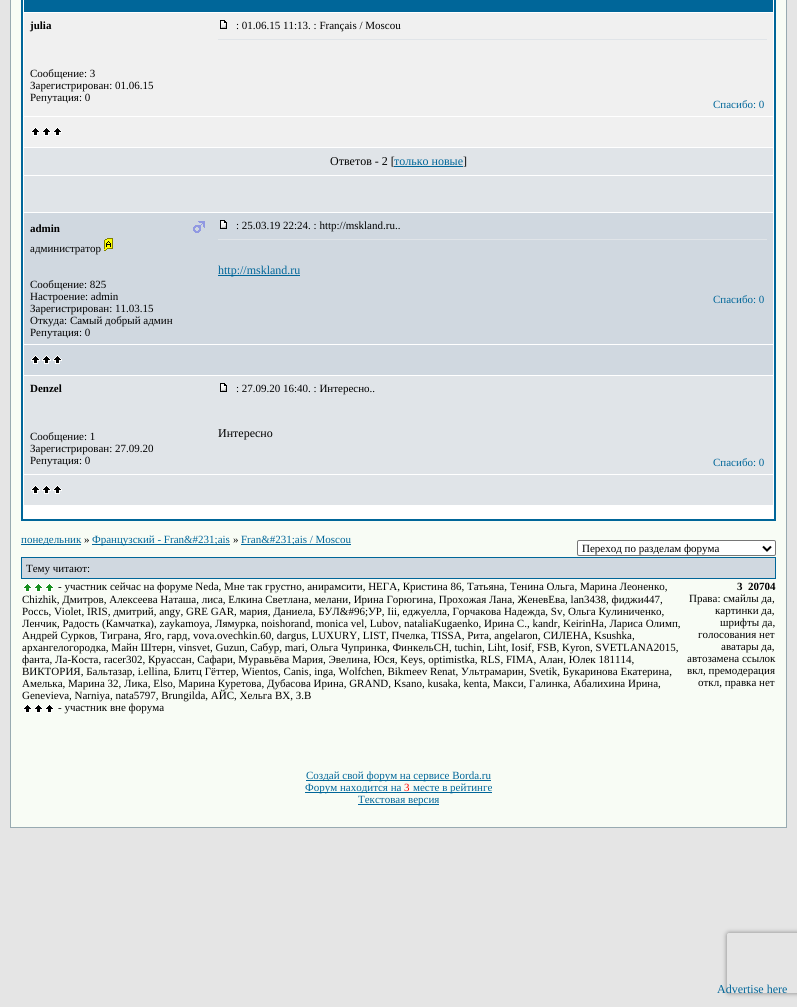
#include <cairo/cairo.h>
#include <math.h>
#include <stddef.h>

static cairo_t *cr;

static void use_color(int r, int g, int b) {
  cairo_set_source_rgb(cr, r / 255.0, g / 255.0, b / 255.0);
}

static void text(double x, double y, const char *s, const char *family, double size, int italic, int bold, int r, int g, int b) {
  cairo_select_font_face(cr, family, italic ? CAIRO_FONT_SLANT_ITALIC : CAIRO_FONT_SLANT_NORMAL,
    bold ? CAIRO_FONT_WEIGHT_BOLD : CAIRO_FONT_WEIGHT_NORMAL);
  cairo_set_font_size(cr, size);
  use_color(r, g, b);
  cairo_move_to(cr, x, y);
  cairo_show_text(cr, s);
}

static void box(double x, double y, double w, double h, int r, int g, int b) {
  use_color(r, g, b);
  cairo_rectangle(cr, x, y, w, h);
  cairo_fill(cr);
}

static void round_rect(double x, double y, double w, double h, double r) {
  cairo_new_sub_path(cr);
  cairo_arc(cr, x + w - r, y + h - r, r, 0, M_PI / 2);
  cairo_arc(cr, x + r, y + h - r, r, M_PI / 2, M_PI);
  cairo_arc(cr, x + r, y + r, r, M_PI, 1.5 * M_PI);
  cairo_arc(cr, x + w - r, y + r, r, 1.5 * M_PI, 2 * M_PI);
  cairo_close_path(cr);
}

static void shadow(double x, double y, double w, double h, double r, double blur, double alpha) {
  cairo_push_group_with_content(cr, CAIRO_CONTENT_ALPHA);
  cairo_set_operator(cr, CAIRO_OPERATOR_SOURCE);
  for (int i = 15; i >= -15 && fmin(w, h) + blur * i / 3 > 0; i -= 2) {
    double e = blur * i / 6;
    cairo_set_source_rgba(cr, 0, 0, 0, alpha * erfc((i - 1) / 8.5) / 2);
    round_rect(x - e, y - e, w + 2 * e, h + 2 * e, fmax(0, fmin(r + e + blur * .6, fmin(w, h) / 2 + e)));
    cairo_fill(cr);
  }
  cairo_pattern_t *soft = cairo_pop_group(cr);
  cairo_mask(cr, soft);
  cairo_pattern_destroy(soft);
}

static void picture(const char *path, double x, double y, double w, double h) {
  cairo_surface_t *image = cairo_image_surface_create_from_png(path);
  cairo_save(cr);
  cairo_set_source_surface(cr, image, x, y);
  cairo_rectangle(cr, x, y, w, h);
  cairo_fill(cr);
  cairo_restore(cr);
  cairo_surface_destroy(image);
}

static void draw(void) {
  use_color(229, 229, 229);
  cairo_paint(cr);
  box(10, 0, 777, 828, 152, 170, 177);
  box(11, 0, 775, 827, 248, 252, 245);
  box(21, 0, 755, 521, 0, 102, 153);
  box(23, 0, 751, 519, 255, 255, 255);
  box(24, 0, 749, 12, 0, 102, 153);
  box(24, 13, 749, 103, 240, 240, 240);
  picture("img_01.png", 220, 20, 7, 9);
  box(218, 39, 549, 1, 224, 228, 232);
  box(24, 117, 749, 30, 240, 240, 240);
  picture("img_02.png", 31, 127, 31, 9);
  box(24, 148, 749, 27, 224, 228, 232);
  box(394, 166, 69, 1, 0, 102, 153);
  box(24, 176, 749, 36, 224, 228, 232);
  box(24, 213, 749, 131, 208, 216, 224);
  picture("img_03.png", 193, 221, 12, 12);
  picture("img_04.png", 104, 238, 9, 13);
  picture("img_05.png", 220, 220, 7, 9);
  box(218, 239, 549, 1, 224, 228, 232);
  box(218, 275, 82, 1, 0, 102, 153);
  box(24, 345, 749, 30, 208, 216, 224);
  picture("img_06.png", 31, 355, 31, 9);
  box(24, 376, 749, 98, 224, 228, 232);
  picture("img_07.png", 220, 383, 7, 9);
  box(24, 475, 749, 30, 224, 228, 232);
  picture("img_08.png", 31, 485, 31, 9);
  box(21, 544, 60, 1, 0, 102, 153);
  box(92, 544, 138, 1, 0, 102, 153);
  box(241, 544, 110, 1, 0, 102, 153);
  use_color(255, 255, 255);
  round_rect(577.5, 540.5, 198, 15, 1.5);
  cairo_fill_preserve(cr);
  use_color(118, 118, 118);
  cairo_set_line_width(cr, 1);
  cairo_stroke(cr);
  cairo_new_path(cr);
  cairo_move_to(cr, 763, 546.5);
  cairo_line_to(cr, 767, 550.5);
  cairo_line_to(cr, 771, 546.5);
  use_color(0, 0, 0);
  cairo_set_line_width(cr, 2);
  cairo_stroke(cr);
  box(21, 557, 755, 22, 0, 102, 153);
  box(22, 558, 753, 20, 208, 216, 224);
  picture("img_09.png", 23, 583, 31, 9);
  picture("img_10.png", 23, 704, 31, 9);
  box(306, 780, 185, 1, 0, 102, 153);
  box(305, 792, 187, 1, 0, 102, 153);
  box(358, 804, 81, 1, 0, 102, 153);
  cairo_save(cr);
  cairo_set_fill_rule(cr, CAIRO_FILL_RULE_EVEN_ODD);
  cairo_new_path(cr);
  cairo_move_to(cr, 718, 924);
  cairo_line_to(cr, 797, 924);
  cairo_line_to(cr, 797, 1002);
  cairo_line_to(cr, 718, 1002);
  cairo_close_path(cr);
  cairo_move_to(cr, 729, 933);
  cairo_line_to(cr, 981, 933);
  cairo_curve_to(cr, 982, 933, 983, 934, 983, 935);
  cairo_line_to(cr, 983, 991);
  cairo_curve_to(cr, 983, 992, 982, 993, 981, 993);
  cairo_line_to(cr, 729, 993);
  cairo_curve_to(cr, 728, 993, 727, 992, 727, 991);
  cairo_line_to(cr, 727, 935);
  cairo_curve_to(cr, 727, 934, 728, 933, 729, 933);
  cairo_close_path(cr);
  cairo_clip(cr);
  use_color(128, 128, 128);
  shadow(727, 933, 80, 60, 2, 2.5, 1);
  cairo_restore(cr);
  text(30, 29, "julia", "Liberation Serif", 11, 0, 1, 0, 0, 0);
  text(30, 77, "Сообщение: 3", "Liberation Serif", 11, 0, 0, 0, 0, 0);
  text(30, 89, "Зарегистрирован: 01.06.15", "Liberation Serif", 11, 0, 0, 0, 0, 0);
  text(30, 101, "Репутация: 0", "Liberation Serif", 11, 0, 0, 0, 0, 0);
  text(236, 29, ": 01.06.15 11:13. : Français / Moscou", "Liberation Serif", 11, 0, 0, 0, 0, 0);
  text(713, 108, "Спасибо: 0", "Liberation Serif", 11, 0, 0, 0, 102, 153);
  text(330, 165, "Ответов - 2 [", "Liberation Serif", 12, 0, 0, 0, 0, 0);
  text(394, 165, "только новые", "Liberation Serif", 12, 0, 0, 0, 102, 153);
  text(463, 165, "]", "Liberation Serif", 12, 0, 0, 0, 0, 0);
  text(30, 232, "admin", "Liberation Serif", 11, 0, 1, 0, 0, 0);
  text(30, 252, "администратор", "Liberation Serif", 11, 0, 0, 0, 0, 0);
  text(30, 288, "Сообщение: 825", "Liberation Serif", 11, 0, 0, 0, 0, 0);
  text(30, 300, "Настроение: admin", "Liberation Serif", 11, 0, 0, 0, 0, 0);
  text(30, 312, "Зарегистрирован: 11.03.15", "Liberation Serif", 11, 0, 0, 0, 0, 0);
  text(30, 324, "Откуда: Самый добрый админ", "Liberation Serif", 11, 0, 0, 0, 0, 0);
  text(30, 336, "Репутация: 0", "Liberation Serif", 11, 0, 0, 0, 0, 0);
  text(236, 229, ": 25.03.19 22:24. : http://mskland.ru..", "Liberation Serif", 11, 0, 0, 0, 0, 0);
  text(218, 274, "http://mskland.ru", "Liberation Serif", 12, 0, 0, 0, 102, 153);
  text(713, 303, "Спасибо: 0", "Liberation Serif", 11, 0, 0, 0, 102, 153);
  text(30, 392, "Denzel", "Liberation Serif", 11, 0, 1, 0, 0, 0);
  text(30, 440, "Сообщение: 1", "Liberation Serif", 11, 0, 0, 0, 0, 0);
  text(30, 452, "Зарегистрирован: 27.09.20", "Liberation Serif", 11, 0, 0, 0, 0, 0);
  text(30, 464, "Репутация: 0", "Liberation Serif", 11, 0, 0, 0, 0, 0);
  text(236, 392, ": 27.09.20 16:40. : Интересно..", "Liberation Serif", 11, 0, 0, 0, 0, 0);
  text(218, 437, "Интересно", "Liberation Serif", 12, 0, 0, 0, 0, 0);
  text(713, 466, "Спасибо: 0", "Liberation Serif", 11, 0, 0, 0, 102, 153);
  text(21, 543, "понедельник", "Liberation Serif", 11, 0, 0, 0, 102, 153);
  text(84, 543, "»", "Liberation Serif", 11, 0, 0, 0, 0, 0);
  text(92, 543, "Французский - Fran&#231;ais", "Liberation Serif", 11, 0, 0, 0, 102, 153);
  text(233, 543, "»", "Liberation Serif", 11, 0, 0, 0, 0, 0);
  text(241, 543, "Fran&#231;ais / Moscou", "Liberation Serif", 11, 0, 0, 0, 102, 153);
  text(582, 552, "Переход по разделам форума", "Liberation Serif", 11, 0, 0, 0, 0, 0);
  text(26, 572, "Тему читают:", "Liberation Serif", 11, 0, 0, 0, 0, 0);
  text(58, 590, "- участник сейчас на форуме Neda, Мне так грустно, анирамсити, НЕГА, Кристина 86, Татьяна, Тенина Ольга, Марина Леоненко,", "Liberation Serif", 11, 0, 0, 0, 0, 0);
  text(22, 603, "Chizhik, Дмитров, Алексеева Наташа, лиса, Елкина Светлана, мелани, Ирина Горюгина, Прохожая Лана, ЖеневЕва, lan3438, фиджи447,", "Liberation Serif", 11, 0, 0, 0, 0, 0);
  text(22, 615, "Россь, Violet, IRIS, дмитрий, angy, GRE GAR, мария, Даниела, БУЛ&#96;УР, Iii, еджуелла, Горчакова Надежда, Sv, Ольга Кулиниченко,", "Liberation Serif", 11, 0, 0, 0, 0, 0);
  text(22, 627, "Ленчик, Радость (Камчатка), zaykamoya, Лямурка, noishorand, monica vel, Lubov, nataliaKugaenko, Ирина С., kandr, KeirinHa, Лариса Олимп,", "Liberation Serif", 11, 0, 0, 0, 0, 0);
  text(22, 639, "Андрей Сурков, Тиграна, Яго, гард, vova.ovechkin.60, dargus, LUXURY, LIST, Пчелка, TISSA, Рита, angelaron, СИЛЕНА, Ksushka,", "Liberation Serif", 11, 0, 0, 0, 0, 0);
  text(22, 651, "архангелогородка, Майн Штерн, vinsvet, Guzun, Сабур, mari, Ольга Чупринка, ФинкельСН, tuchin, Liht, Iosif, FSB, Kyron, SVETLANA2015,", "Liberation Serif", 11, 0, 0, 0, 0, 0);
  text(22, 663, "фанта, Ла-Коста, racer302, Круассан, Сафари, Муравьёва Мария, Эвелина, Юся, Keys, optimistka, RLS, FIMA, Алан, Юлек 181114,", "Liberation Serif", 11, 0, 0, 0, 0, 0);
  text(22, 675, "ВИКТОРИЯ, Бальтазар, i.ellina, Блитц Гёттер, Wientos, Canis, inga, Wolfchen, Bikmeev Renat, Ультрамарин, Svetik, Букаринова Екатерина,", "Liberation Serif", 11, 0, 0, 0, 0, 0);
  text(22, 687, "Амелька, Марина 32, Лика, Elso, Марина Куретова, Дубасова Ирина, GRAND, Ksano, kusaka, kenta, Макси, Галинка, Абалихина Ирина,", "Liberation Serif", 11, 0, 0, 0, 0, 0);
  text(22, 699, "Genevieva, Narniya, nata5797, Brungilda, АЙС, Хельга ВХ, З.В", "Liberation Serif", 11, 0, 0, 0, 0, 0);
  text(58, 711, "- участник вне форума", "Liberation Serif", 11, 0, 0, 0, 0, 0);
  text(737, 590, "3", "Liberation Serif", 11, 0, 1, 0, 0, 0);
  text(748, 590, "20704", "Liberation Serif", 11, 0, 1, 0, 0, 0);
  text(689, 602, "Права: смайлы да,", "Liberation Serif", 11, 0, 0, 0, 0, 0);
  text(715, 614, "картинки да,", "Liberation Serif", 11, 0, 0, 0, 0, 0);
  text(720, 626, "шрифты да,", "Liberation Serif", 11, 0, 0, 0, 0, 0);
  text(698, 638, "голосования нет", "Liberation Serif", 11, 0, 0, 0, 0, 0);
  text(721, 650, "аватары да,", "Liberation Serif", 11, 0, 0, 0, 0, 0);
  text(687, 662, "автозамена ссылок", "Liberation Serif", 11, 0, 0, 0, 0, 0);
  text(687, 674, "вкл, премодерация", "Liberation Serif", 11, 0, 0, 0, 0, 0);
  text(698, 686, "откл, правка нет", "Liberation Serif", 11, 0, 0, 0, 0, 0);
  text(306, 779, "Создай свой форум на сервисе Borda.ru", "Liberation Serif", 11, 0, 0, 0, 102, 153);
  text(305, 791, "Форум находится на", "Liberation Serif", 11, 0, 0, 0, 102, 153);
  text(404, 791, "3", "Liberation Serif", 11, 0, 0, 255, 0, 0);
  text(413, 791, "месте в рейтинге", "Liberation Serif", 11, 0, 0, 0, 102, 153);
  text(358, 803, "Текстовая версия", "Liberation Serif", 11, 0, 0, 0, 102, 153);
  text(717, 993, "Advertise here", "Liberation Serif", 12, 0, 0, 0, 102, 153);
}

int main(void) {
  cairo_surface_t *surface = cairo_image_surface_create(CAIRO_FORMAT_RGB24, 797, 1007);
  cr = cairo_create(surface);
  cairo_font_options_t *options = cairo_font_options_create();
  cairo_font_options_set_hint_metrics(options, CAIRO_HINT_METRICS_OFF);
  cairo_font_options_set_hint_style(options, CAIRO_HINT_STYLE_NONE);
  cairo_set_font_options(cr, options);
  cairo_set_miter_limit(cr, 4);
  draw();
  cairo_surface_write_to_png(surface, "out.png");
  cairo_font_options_destroy(options);
  cairo_destroy(cr);
  cairo_surface_destroy(surface);
  return 0;
}
